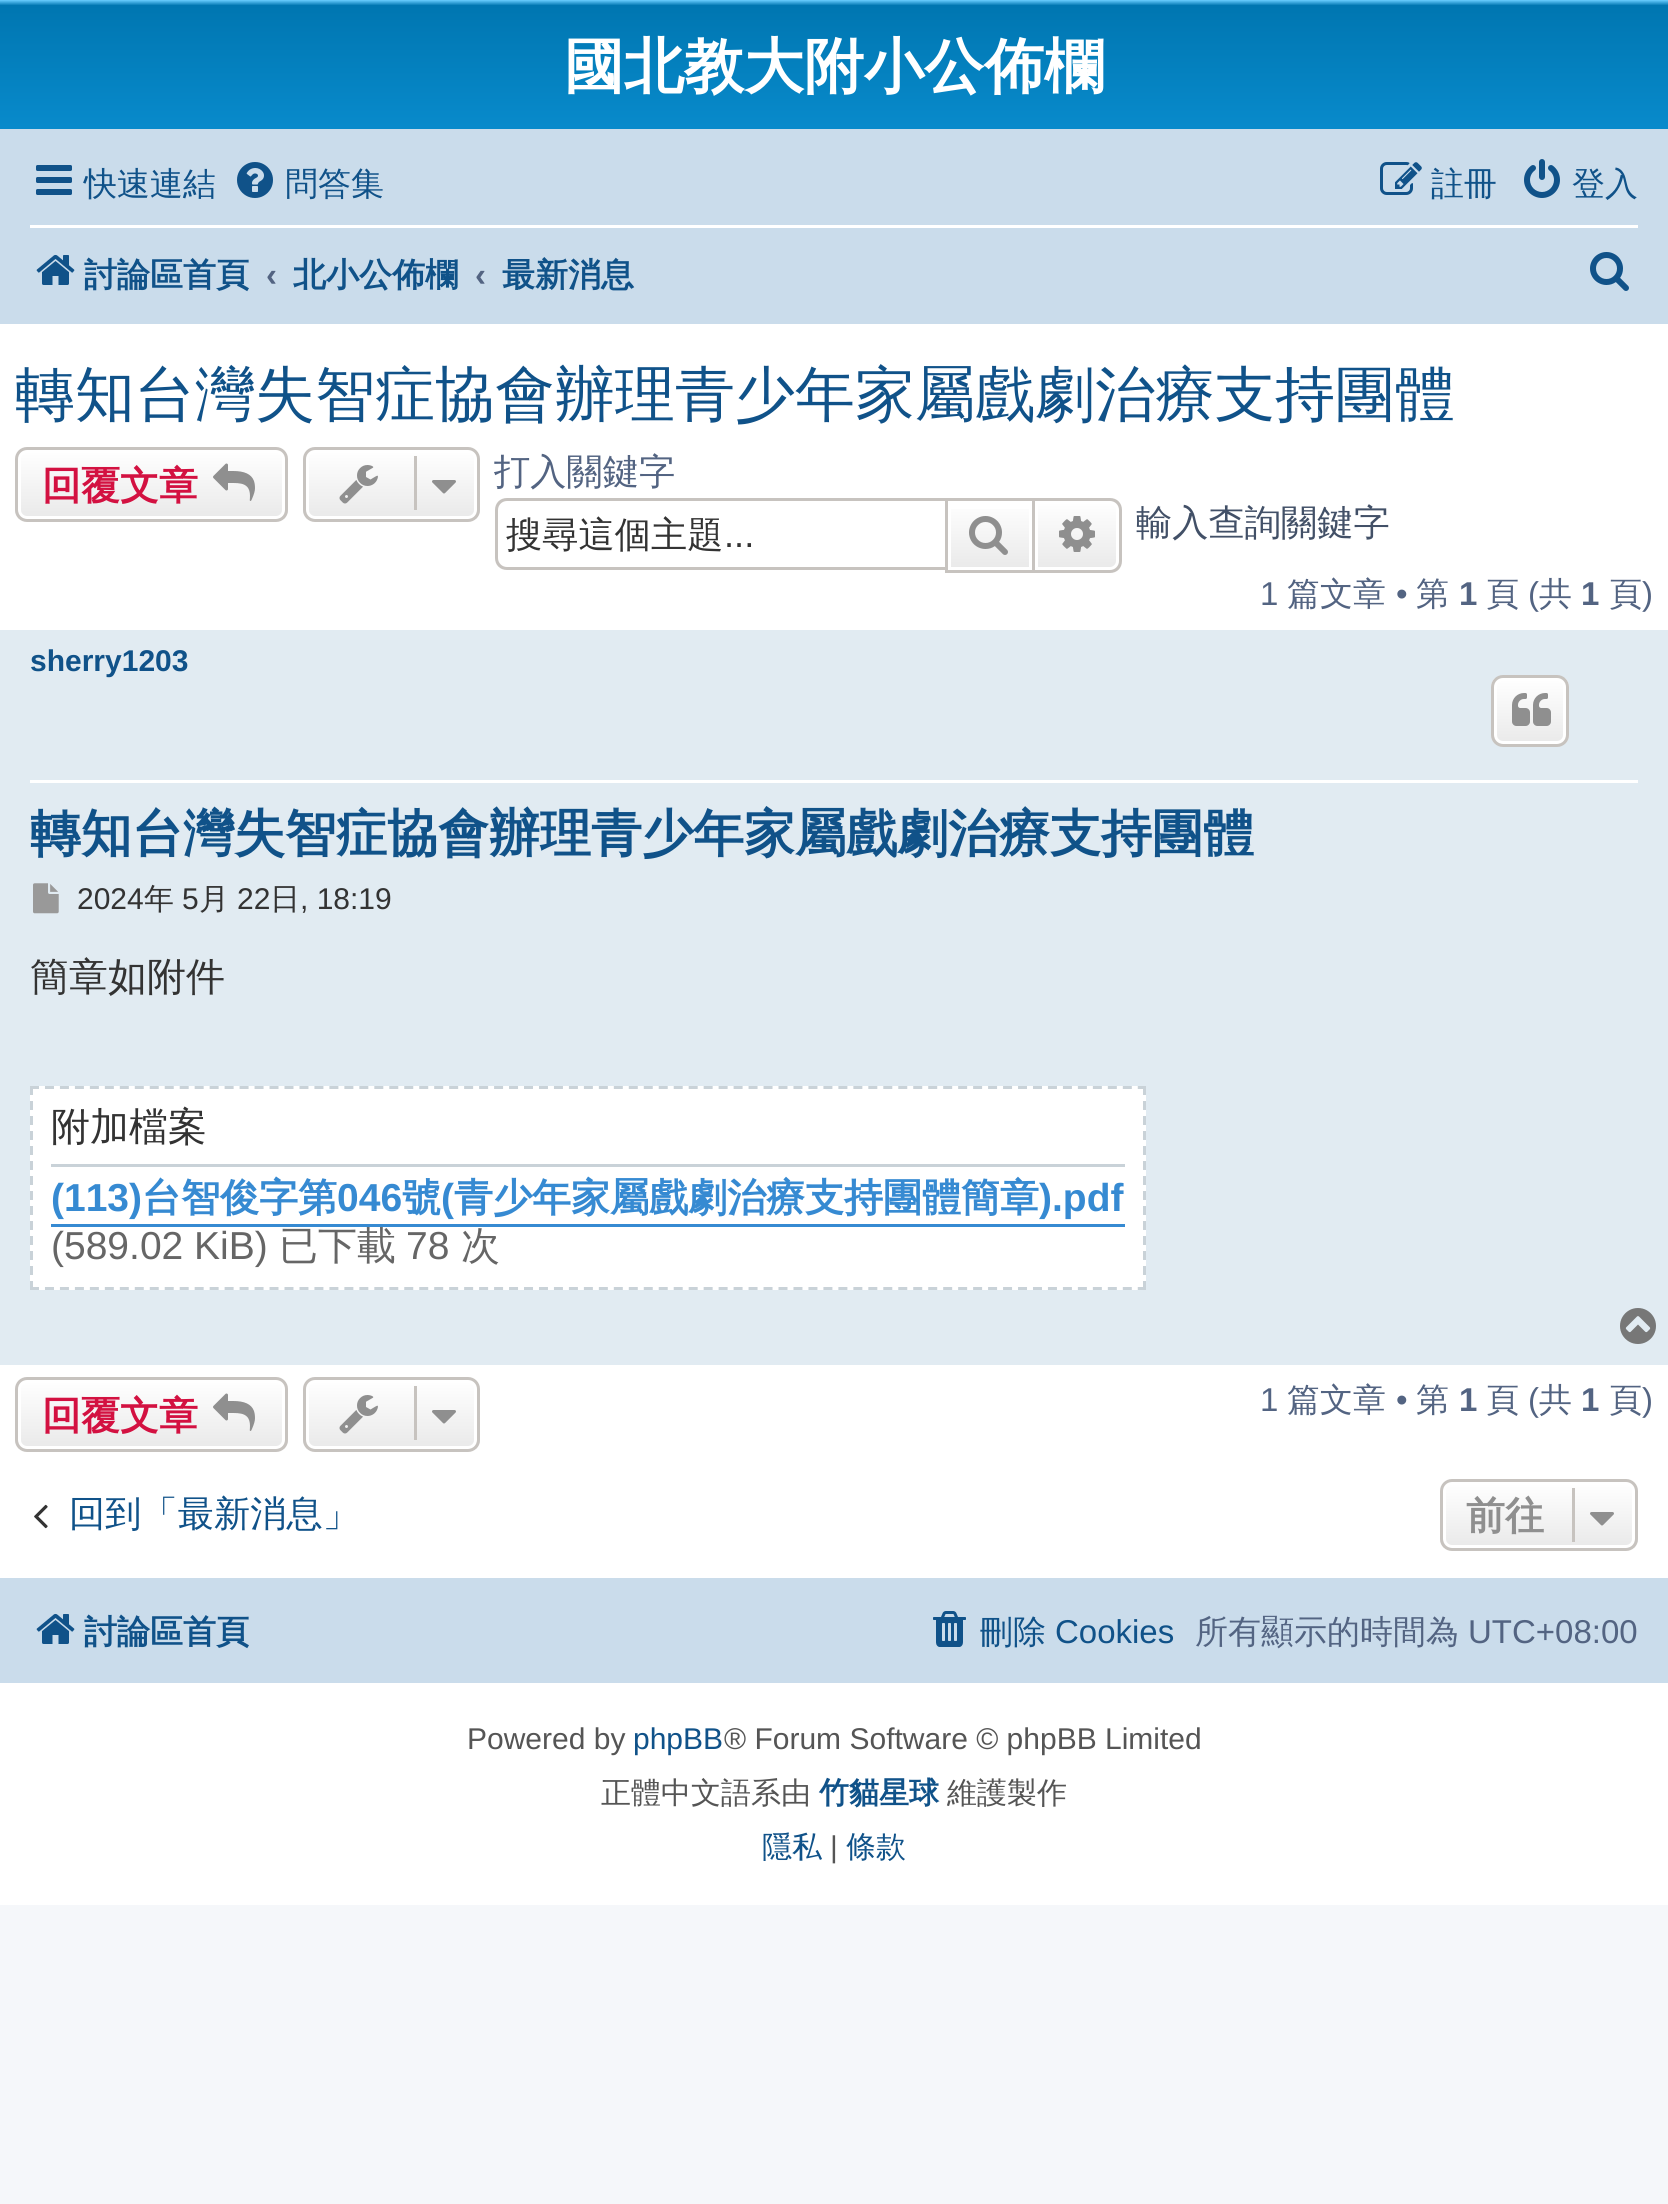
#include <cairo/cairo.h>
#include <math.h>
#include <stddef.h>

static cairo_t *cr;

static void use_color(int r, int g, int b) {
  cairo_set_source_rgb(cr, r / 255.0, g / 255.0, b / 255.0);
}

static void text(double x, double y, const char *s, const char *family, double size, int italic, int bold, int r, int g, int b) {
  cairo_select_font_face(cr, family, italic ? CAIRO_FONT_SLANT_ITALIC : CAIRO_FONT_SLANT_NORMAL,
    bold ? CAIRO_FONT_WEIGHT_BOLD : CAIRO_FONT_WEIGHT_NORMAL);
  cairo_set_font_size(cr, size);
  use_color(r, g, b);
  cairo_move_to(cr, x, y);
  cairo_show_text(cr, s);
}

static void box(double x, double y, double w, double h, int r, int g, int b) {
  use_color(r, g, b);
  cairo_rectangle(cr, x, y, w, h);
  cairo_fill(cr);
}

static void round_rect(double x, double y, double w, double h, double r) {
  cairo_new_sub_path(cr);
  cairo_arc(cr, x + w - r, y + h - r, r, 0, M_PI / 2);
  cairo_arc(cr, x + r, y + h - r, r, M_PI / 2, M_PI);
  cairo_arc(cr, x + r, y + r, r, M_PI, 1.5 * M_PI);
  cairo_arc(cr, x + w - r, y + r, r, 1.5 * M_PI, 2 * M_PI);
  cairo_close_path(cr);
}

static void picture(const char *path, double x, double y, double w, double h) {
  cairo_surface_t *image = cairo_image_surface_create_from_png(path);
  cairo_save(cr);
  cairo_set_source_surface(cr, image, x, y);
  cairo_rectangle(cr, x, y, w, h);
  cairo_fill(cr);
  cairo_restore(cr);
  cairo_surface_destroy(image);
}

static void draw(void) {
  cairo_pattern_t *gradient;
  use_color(245, 247, 250);
  cairo_paint(cr);
  box(0, 324, 1668, 1581, 255, 255, 255);
  gradient = cairo_pattern_create_linear(834, 0, 834, 276);
  cairo_pattern_add_color_stop_rgba(gradient, 0, 0.416, 0.808, 1, 1);
  cairo_pattern_add_color_stop_rgba(gradient, 0.02, 0, 0.463, 0.694, 1);
  cairo_pattern_add_color_stop_rgba(gradient, 1, 0.071, 0.639, 0.922, 1);
  cairo_set_source(cr, gradient);
  cairo_pattern_destroy(gradient);
  cairo_rectangle(cr, 0, 0, 1668, 129);
  cairo_fill(cr);
  box(0, 129, 1668, 195, 202, 220, 235);
  picture("img_01.png", 36, 165, 36, 30);
  picture("img_02.png", 237, 162, 36, 36);
  picture("img_03.png", 1380, 162, 42, 33);
  picture("img_04.png", 1524, 159, 36, 39);
  box(30, 225, 1608, 3, 255, 255, 255);
  picture("img_05.png", 36, 254, 39, 31);
  picture("img_06.png", 1590, 252, 39, 39);
  cairo_save(cr);
  round_rect(15, 447, 273, 75, 12);
  cairo_clip(cr);
  gradient = cairo_pattern_create_linear(152, 450, 152, 519);
  cairo_pattern_add_color_stop_rgba(gradient, 0, 1, 1, 1, 1);
  cairo_pattern_add_color_stop_rgba(gradient, 1, 0.914, 0.914, 0.914, 1);
  cairo_set_source(cr, gradient);
  cairo_pattern_destroy(gradient);
  cairo_rectangle(cr, 15, 450, 273, 69);
  cairo_fill(cr);
  cairo_restore(cr);
  round_rect(19.5, 451.5, 264, 66, 7.5);
  cairo_set_line_width(cr, 3);
  cairo_stroke(cr);
  round_rect(16.5, 448.5, 270, 72, 10.5);
  use_color(199, 195, 191);
  cairo_stroke(cr);
  picture("img_07.png", 213, 463, 42, 38);
  cairo_save(cr);
  round_rect(303, 447, 177, 75, 12);
  cairo_clip(cr);
  gradient = cairo_pattern_create_linear(392, 450, 392, 519);
  cairo_pattern_add_color_stop_rgba(gradient, 0, 1, 1, 1, 1);
  cairo_pattern_add_color_stop_rgba(gradient, 1, 0.914, 0.914, 0.914, 1);
  cairo_set_source(cr, gradient);
  cairo_pattern_destroy(gradient);
  cairo_rectangle(cr, 303, 450, 177, 69);
  cairo_fill(cr);
  cairo_restore(cr);
  round_rect(307.5, 451.5, 168, 66, 7.5);
  use_color(255, 255, 255);
  cairo_stroke(cr);
  round_rect(304.5, 448.5, 174, 72, 10.5);
  use_color(199, 195, 191);
  cairo_stroke(cr);
  picture("img_08.png", 339, 465, 39, 39);
  box(414, 456, 3, 54, 199, 195, 191);
  picture("img_09.png", 432, 480, 24, 14);
  cairo_set_fill_rule(cr, CAIRO_FILL_RULE_EVEN_ODD);
  cairo_new_path(cr);
  cairo_move_to(cr, 507, 498);
  cairo_line_to(cr, 945, 498);
  cairo_line_to(cr, 945, 570);
  cairo_line_to(cr, 507, 570);
  cairo_curve_to(cr, 500, 570, 495, 565, 495, 558);
  cairo_line_to(cr, 495, 510);
  cairo_curve_to(cr, 495, 503, 500, 498, 507, 498);
  cairo_close_path(cr);
  cairo_move_to(cr, 507, 501);
  cairo_line_to(cr, 945, 501);
  cairo_line_to(cr, 945, 567);
  cairo_line_to(cr, 507, 567);
  cairo_curve_to(cr, 502, 567, 498, 563, 498, 558);
  cairo_line_to(cr, 498, 510);
  cairo_curve_to(cr, 498, 505, 502, 501, 507, 501);
  cairo_close_path(cr);
  cairo_fill(cr);
  gradient = cairo_pattern_create_linear(990, 501, 990, 570);
  cairo_pattern_add_color_stop_rgba(gradient, 0, 1, 1, 1, 1);
  cairo_pattern_add_color_stop_rgba(gradient, 1, 0.914, 0.914, 0.914, 1);
  cairo_set_source(cr, gradient);
  cairo_pattern_destroy(gradient);
  cairo_rectangle(cr, 951, 509, 78, 58);
  cairo_fill(cr);
  cairo_rectangle(cr, 946.5, 499.5, 87, 72);
  use_color(199, 195, 191);
  cairo_stroke(cr);
  picture("img_10.png", 969, 516, 39, 39);
  gradient = cairo_pattern_create_linear(1077, 501, 1077, 570);
  cairo_pattern_add_color_stop_rgba(gradient, 0, 1, 1, 1, 1);
  cairo_pattern_add_color_stop_rgba(gradient, 1, 0.914, 0.914, 0.914, 1);
  cairo_set_source(cr, gradient);
  cairo_pattern_destroy(gradient);
  cairo_new_path(cr);
  cairo_move_to(cr, 1036.5, 502.5);
  cairo_line_to(cr, 1110, 502.5);
  cairo_curve_to(cr, 1114, 502.5, 1117.5, 506, 1117.5, 510);
  cairo_line_to(cr, 1117.5, 561);
  cairo_curve_to(cr, 1117.5, 565, 1114, 568.5, 1110, 568.5);
  cairo_line_to(cr, 1036.5, 568.5);
  cairo_close_path(cr);
  cairo_fill_preserve(cr);
  use_color(255, 255, 255);
  cairo_stroke(cr);
  use_color(199, 195, 191);
  cairo_new_path(cr);
  cairo_move_to(cr, 1035, 498);
  cairo_line_to(cr, 1110, 498);
  cairo_curve_to(cr, 1117, 498, 1122, 503, 1122, 510);
  cairo_line_to(cr, 1122, 561);
  cairo_curve_to(cr, 1122, 568, 1117, 573, 1110, 573);
  cairo_line_to(cr, 1035, 573);
  cairo_close_path(cr);
  cairo_move_to(cr, 1035, 501);
  cairo_line_to(cr, 1110, 501);
  cairo_curve_to(cr, 1115, 501, 1119, 505, 1119, 510);
  cairo_line_to(cr, 1119, 561);
  cairo_curve_to(cr, 1119, 566, 1115, 570, 1110, 570);
  cairo_line_to(cr, 1035, 570);
  cairo_close_path(cr);
  cairo_fill(cr);
  picture("img_11.png", 1059, 516, 36, 36);
  box(0, 630, 1668, 735, 225, 235, 242);
  box(30, 780, 1608, 3, 255, 255, 255);
  cairo_save(cr);
  cairo_set_fill_rule(cr, CAIRO_FILL_RULE_WINDING);
  round_rect(1491, 675, 78, 72, 12);
  cairo_clip(cr);
  gradient = cairo_pattern_create_linear(1530, 678, 1530, 744);
  cairo_pattern_add_color_stop_rgba(gradient, 0, 1, 1, 1, 1);
  cairo_pattern_add_color_stop_rgba(gradient, 1, 0.914, 0.914, 0.914, 1);
  cairo_set_source(cr, gradient);
  cairo_pattern_destroy(gradient);
  cairo_rectangle(cr, 1491, 678, 78, 66);
  cairo_fill(cr);
  cairo_restore(cr);
  round_rect(1495.5, 679.5, 69, 63, 7.5);
  cairo_stroke(cr);
  round_rect(1492.5, 676.5, 75, 69, 10.5);
  use_color(199, 195, 191);
  cairo_stroke(cr);
  picture("img_12.png", 1512, 693, 39, 33);
  picture("img_13.png", 33, 883, 26, 31);
  box(30, 1086, 1116, 204, 255, 255, 255);
  cairo_new_path(cr);
  cairo_move_to(cr, 30, 1087.5);
  cairo_line_to(cr, 1146, 1087.5);
  use_color(201, 210, 216);
  cairo_set_dash(cr, (double[]){9, 5.97}, 2, 0);
  cairo_stroke(cr);
  cairo_new_path(cr);
  cairo_move_to(cr, 1144.5, 1086);
  cairo_line_to(cr, 1144.5, 1290);
  cairo_set_dash(cr, (double[]){9, 6}, 2, 0);
  cairo_stroke(cr);
  cairo_new_path(cr);
  cairo_move_to(cr, 30, 1288.5);
  cairo_line_to(cr, 1146, 1288.5);
  cairo_set_dash(cr, (double[]){9, 5.97}, 2, 0);
  cairo_stroke(cr);
  cairo_new_path(cr);
  cairo_move_to(cr, 31.5, 1086);
  cairo_line_to(cr, 31.5, 1290);
  cairo_set_dash(cr, (double[]){9, 6}, 2, 0);
  cairo_stroke(cr);
  box(51, 1164, 1074, 3, 201, 210, 216);
  box(51, 1224, 1074, 3, 54, 138, 210);
  picture("img_14.png", 1620, 1308, 36, 36);
  cairo_save(cr);
  cairo_set_fill_rule(cr, CAIRO_FILL_RULE_WINDING);
  round_rect(15, 1377, 273, 75, 12);
  cairo_clip(cr);
  gradient = cairo_pattern_create_linear(152, 1380, 152, 1449);
  cairo_pattern_add_color_stop_rgba(gradient, 0, 1, 1, 1, 1);
  cairo_pattern_add_color_stop_rgba(gradient, 1, 0.914, 0.914, 0.914, 1);
  cairo_set_source(cr, gradient);
  cairo_pattern_destroy(gradient);
  cairo_rectangle(cr, 15, 1380, 273, 69);
  cairo_fill(cr);
  cairo_restore(cr);
  round_rect(19.5, 1381.5, 264, 66, 7.5);
  use_color(255, 255, 255);
  cairo_set_dash(cr, NULL, 0, 0);
  cairo_stroke(cr);
  round_rect(16.5, 1378.5, 270, 72, 10.5);
  use_color(199, 195, 191);
  cairo_stroke(cr);
  picture("img_07.png", 213, 1393, 42, 38);
  cairo_save(cr);
  cairo_set_fill_rule(cr, CAIRO_FILL_RULE_WINDING);
  round_rect(303, 1377, 177, 75, 12);
  cairo_clip(cr);
  gradient = cairo_pattern_create_linear(392, 1380, 392, 1449);
  cairo_pattern_add_color_stop_rgba(gradient, 0, 1, 1, 1, 1);
  cairo_pattern_add_color_stop_rgba(gradient, 1, 0.914, 0.914, 0.914, 1);
  cairo_set_source(cr, gradient);
  cairo_pattern_destroy(gradient);
  cairo_rectangle(cr, 303, 1380, 177, 69);
  cairo_fill(cr);
  cairo_restore(cr);
  round_rect(307.5, 1381.5, 168, 66, 7.5);
  use_color(255, 255, 255);
  cairo_stroke(cr);
  round_rect(304.5, 1378.5, 174, 72, 10.5);
  use_color(199, 195, 191);
  cairo_stroke(cr);
  picture("img_08.png", 339, 1395, 39, 39);
  box(414, 1386, 3, 54, 199, 195, 191);
  picture("img_09.png", 432, 1410, 24, 14);
  picture("img_15.png", 34, 1504, 14, 25);
  cairo_save(cr);
  cairo_set_fill_rule(cr, CAIRO_FILL_RULE_WINDING);
  round_rect(1440, 1479, 198, 72, 12);
  cairo_clip(cr);
  gradient = cairo_pattern_create_linear(1539, 1482, 1539, 1548);
  cairo_pattern_add_color_stop_rgba(gradient, 0, 1, 1, 1, 1);
  cairo_pattern_add_color_stop_rgba(gradient, 1, 0.914, 0.914, 0.914, 1);
  cairo_set_source(cr, gradient);
  cairo_pattern_destroy(gradient);
  cairo_rectangle(cr, 1440, 1482, 198, 66);
  cairo_fill(cr);
  cairo_restore(cr);
  round_rect(1444.5, 1483.5, 189, 63, 7.5);
  use_color(255, 255, 255);
  cairo_stroke(cr);
  round_rect(1441.5, 1480.5, 195, 69, 10.5);
  use_color(199, 195, 191);
  cairo_stroke(cr);
  box(1572, 1488, 3, 54, 199, 195, 191);
  picture("img_16.png", 1590, 1512, 24, 14);
  box(0, 1578, 1668, 105, 202, 220, 235);
  picture("img_05.png", 36, 1613, 39, 31);
  picture("img_17.png", 933, 1611, 33, 36);
  text(564, 87, "國北教大附小公佈欄", "WenQuanYi Zen Hei", 60, 0, 1, 255, 255, 255);
  text(84, 195, "快速連結", "WenQuanYi Zen Hei Medium", 33, 0, 0, 16, 82, 137);
  text(285, 195, "問答集", "WenQuanYi Zen Hei Medium", 33, 0, 0, 16, 82, 137);
  text(1431, 195, "註冊", "WenQuanYi Zen Hei Medium", 33, 0, 0, 16, 82, 137);
  text(1572, 195, "登入", "WenQuanYi Zen Hei Medium", 33, 0, 0, 16, 82, 137);
  text(84, 286, "討論區首頁", "WenQuanYi Zen Hei", 33, 0, 1, 16, 82, 137);
  text(266, 286, "‹", "Liberation Sans", 33, 0, 1, 83, 100, 130);
  text(293, 286, "北小公佈欄", "WenQuanYi Zen Hei", 33, 0, 1, 16, 82, 137);
  text(475, 286, "‹", "Liberation Sans", 33, 0, 1, 83, 100, 130);
  text(502, 286, "最新消息", "WenQuanYi Zen Hei", 33, 0, 1, 16, 82, 137);
  text(15, 415, "轉知台灣失智症協會辦理青少年家屬戲劇治療支持團體", "WenQuanYi Zen Hei Medium", 60, 0, 0, 16, 82, 137);
  text(42, 499, "回覆文章", "WenQuanYi Zen Hei", 39, 0, 1, 211, 17, 65);
  text(494, 484, "打入關鍵字", "WenQuanYi Zen Hei Medium", 36.25, 0, 0, 83, 100, 130);
  text(506, 547, "搜尋這個主題", "WenQuanYi Zen Hei Medium", 36.25, 0, 0, 51, 51, 51);
  text(724, 547, "...", "Liberation Sans", 36.25, 0, 0, 51, 51, 51);
  text(1136, 535, "輸入查詢關鍵字", "WenQuanYi Zen Hei Medium", 36.25, 0, 0, 66, 80, 103);
  text(1260, 605, "1", "Liberation Sans", 33, 0, 0, 83, 100, 130);
  text(1287, 605, "篇文章", "WenQuanYi Zen Hei Medium", 33, 0, 0, 83, 100, 130);
  text(1396, 605, "•", "Liberation Sans", 33, 0, 0, 83, 100, 130);
  text(1416, 605, "第", "WenQuanYi Zen Hei Medium", 33, 0, 0, 83, 100, 130);
  text(1459, 605, "1", "Liberation Sans", 33, 0, 1, 83, 100, 130);
  text(1486, 605, "頁", "WenQuanYi Zen Hei Medium", 33, 0, 0, 83, 100, 130);
  text(1528, 605, "(", "Liberation Sans", 33, 0, 0, 83, 100, 130);
  text(1539, 605, "共", "WenQuanYi Zen Hei Medium", 33, 0, 0, 83, 100, 130);
  text(1581, 605, "1", "Liberation Sans", 33, 0, 1, 83, 100, 130);
  text(1609, 605, "頁", "WenQuanYi Zen Hei Medium", 33, 0, 0, 83, 100, 130);
  text(1642, 605, ")", "Liberation Sans", 33, 0, 0, 83, 100, 130);
  text(30, 671, "sherry1203", "Liberation Sans", 30, 0, 1, 16, 82, 137);
  text(30, 851, "轉知台灣失智症協會辦理青少年家屬戲劇治療支持團體", "WenQuanYi Zen Hei", 51, 0, 1, 16, 82, 137);
  text(77, 909, "2024", "Liberation Sans", 30, 0, 0, 51, 51, 51);
  text(144, 909, "年", "WenQuanYi Zen Hei Medium", 30, 0, 0, 51, 51, 51);
  text(182, 909, "5", "Liberation Sans", 30, 0, 0, 51, 51, 51);
  text(199, 909, "月", "WenQuanYi Zen Hei Medium", 30, 0, 0, 51, 51, 51);
  text(237, 909, "22", "Liberation Sans", 30, 0, 0, 51, 51, 51);
  text(270, 909, "日", "WenQuanYi Zen Hei Medium", 30, 0, 0, 51, 51, 51);
  text(300, 909, ", 18:19", "Liberation Sans", 30, 0, 0, 51, 51, 51);
  text(30, 990, "簡章如附件", "WenQuanYi Zen Hei Medium", 39, 0, 0, 51, 51, 51);
  text(51, 1140, "附加檔案", "WenQuanYi Zen Hei Medium", 39, 0, 0, 51, 51, 51);
  text(51, 1211, "(113)", "Liberation Sans", 39, 0, 1, 54, 138, 210);
  text(142, 1211, "台智俊字第", "WenQuanYi Zen Hei", 39, 0, 1, 54, 138, 210);
  text(337, 1211, "046", "Liberation Sans", 39, 0, 1, 54, 138, 210);
  text(402, 1211, "號", "WenQuanYi Zen Hei", 39, 0, 1, 54, 138, 210);
  text(441, 1211, "(", "Liberation Sans", 39, 0, 1, 54, 138, 210);
  text(454, 1211, "青少年家屬戲劇治療支持團體簡章", "WenQuanYi Zen Hei", 39, 0, 1, 54, 138, 210);
  text(1039, 1211, ").pdf", "Liberation Sans", 39, 0, 1, 54, 138, 210);
  text(51, 1259, "(589.02 KiB)", "Liberation Sans", 39, 0, 0, 102, 102, 102);
  text(279, 1259, "已下載", "WenQuanYi Zen Hei Medium", 39, 0, 0, 102, 102, 102);
  text(406, 1259, "78", "Liberation Sans", 39, 0, 0, 102, 102, 102);
  text(461, 1259, "次", "WenQuanYi Zen Hei Medium", 39, 0, 0, 102, 102, 102);
  text(42, 1429, "回覆文章", "WenQuanYi Zen Hei", 39, 0, 1, 211, 17, 65);
  text(1260, 1411, "1", "Liberation Sans", 33, 0, 0, 83, 100, 130);
  text(1287, 1411, "篇文章", "WenQuanYi Zen Hei Medium", 33, 0, 0, 83, 100, 130);
  text(1396, 1411, "•", "Liberation Sans", 33, 0, 0, 83, 100, 130);
  text(1416, 1411, "第", "WenQuanYi Zen Hei Medium", 33, 0, 0, 83, 100, 130);
  text(1459, 1411, "1", "Liberation Sans", 33, 0, 1, 83, 100, 130);
  text(1486, 1411, "頁", "WenQuanYi Zen Hei Medium", 33, 0, 0, 83, 100, 130);
  text(1528, 1411, "(", "Liberation Sans", 33, 0, 0, 83, 100, 130);
  text(1539, 1411, "共", "WenQuanYi Zen Hei Medium", 33, 0, 0, 83, 100, 130);
  text(1581, 1411, "1", "Liberation Sans", 33, 0, 1, 83, 100, 130);
  text(1609, 1411, "頁", "WenQuanYi Zen Hei Medium", 33, 0, 0, 83, 100, 130);
  text(1642, 1411, ")", "Liberation Sans", 33, 0, 0, 83, 100, 130);
  text(69, 1526, "回到「最新消息」", "WenQuanYi Zen Hei Medium", 36.25, 0, 0, 16, 82, 137);
  text(1466, 1529, "前往", "WenQuanYi Zen Hei", 39, 0, 1, 143, 143, 143);
  text(84, 1643, "討論區首頁", "WenQuanYi Zen Hei", 33, 0, 1, 16, 82, 137);
  text(980, 1643, "刪除", "WenQuanYi Zen Hei Medium", 33, 0, 0, 16, 82, 137);
  text(1055, 1643, "Cookies", "Liberation Sans", 33, 0, 0, 16, 82, 137);
  text(1195, 1643, "所有顯示的時間為", "WenQuanYi Zen Hei Medium", 33, 0, 0, 83, 100, 130);
  text(1468, 1643, "UTC+08:00", "Liberation Sans", 33, 0, 0, 83, 100, 130);
  text(467, 1749, "Powered by", "Liberation Sans", 30, 0, 0, 85, 85, 85);
  text(633, 1749, "phpBB", "Liberation Sans", 30, 0, 0, 16, 82, 137);
  text(724, 1749, "® Forum Software © phpBB Limited", "Liberation Sans", 30, 0, 0, 85, 85, 85);
  text(601, 1803, "正體中文語系由", "WenQuanYi Zen Hei Medium", 30, 0, 0, 85, 85, 85);
  text(819, 1803, "竹貓星球", "WenQuanYi Zen Hei", 30, 0, 1, 16, 82, 137);
  text(947, 1803, "維護製作", "WenQuanYi Zen Hei Medium", 30, 0, 0, 85, 85, 85);
  text(762, 1857, "隱私", "WenQuanYi Zen Hei Medium", 30, 0, 0, 16, 82, 137);
  text(830, 1857, "|", "Liberation Sans", 30, 0, 0, 85, 85, 85);
  text(846, 1857, "條款", "WenQuanYi Zen Hei Medium", 30, 0, 0, 16, 82, 137);
}

int main(void) {
  cairo_surface_t *surface = cairo_image_surface_create(CAIRO_FORMAT_RGB24, 1668, 2204);
  cr = cairo_create(surface);
  cairo_font_options_t *options = cairo_font_options_create();
  cairo_font_options_set_hint_metrics(options, CAIRO_HINT_METRICS_OFF);
  cairo_font_options_set_hint_style(options, CAIRO_HINT_STYLE_NONE);
  cairo_set_font_options(cr, options);
  cairo_set_miter_limit(cr, 4);
  draw();
  cairo_surface_write_to_png(surface, "out.png");
  cairo_font_options_destroy(options);
  cairo_destroy(cr);
  cairo_surface_destroy(surface);
  return 0;
}
